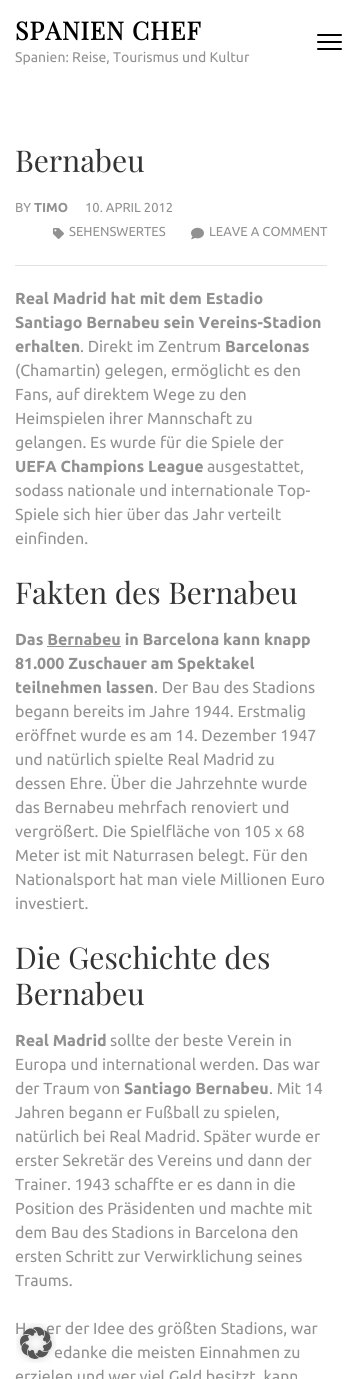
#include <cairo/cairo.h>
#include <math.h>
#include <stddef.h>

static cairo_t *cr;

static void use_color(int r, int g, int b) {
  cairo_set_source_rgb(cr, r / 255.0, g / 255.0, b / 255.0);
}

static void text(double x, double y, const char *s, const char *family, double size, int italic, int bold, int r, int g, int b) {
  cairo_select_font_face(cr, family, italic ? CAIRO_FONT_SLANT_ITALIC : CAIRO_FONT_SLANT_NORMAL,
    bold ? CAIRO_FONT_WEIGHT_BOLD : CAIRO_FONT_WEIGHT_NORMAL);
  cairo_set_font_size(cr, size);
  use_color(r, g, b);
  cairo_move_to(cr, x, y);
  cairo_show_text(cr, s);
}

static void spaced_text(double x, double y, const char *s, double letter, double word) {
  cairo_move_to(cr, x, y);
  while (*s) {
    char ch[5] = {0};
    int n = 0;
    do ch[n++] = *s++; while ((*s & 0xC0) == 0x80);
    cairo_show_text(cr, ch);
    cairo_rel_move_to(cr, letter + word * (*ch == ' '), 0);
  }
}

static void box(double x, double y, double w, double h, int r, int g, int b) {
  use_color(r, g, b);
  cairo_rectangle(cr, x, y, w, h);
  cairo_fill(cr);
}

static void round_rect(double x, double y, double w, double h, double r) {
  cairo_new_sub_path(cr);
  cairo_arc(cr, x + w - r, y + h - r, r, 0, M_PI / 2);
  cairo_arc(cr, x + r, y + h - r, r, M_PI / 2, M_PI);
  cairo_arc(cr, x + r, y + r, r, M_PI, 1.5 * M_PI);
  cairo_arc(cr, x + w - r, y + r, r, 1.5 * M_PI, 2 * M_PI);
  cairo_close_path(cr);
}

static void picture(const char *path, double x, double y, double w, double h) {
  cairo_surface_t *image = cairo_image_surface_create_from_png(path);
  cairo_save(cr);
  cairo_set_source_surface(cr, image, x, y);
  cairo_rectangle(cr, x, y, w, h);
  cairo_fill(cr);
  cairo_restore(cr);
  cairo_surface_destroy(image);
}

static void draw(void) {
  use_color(255, 255, 255);
  cairo_paint(cr);
  use_color(0, 0, 0);
  round_rect(317, 34, 25, 2, 1);
  cairo_fill(cr);
  round_rect(317, 41, 25, 2, 1);
  cairo_fill(cr);
  round_rect(317, 48, 25, 2, 1);
  cairo_fill(cr);
  box(15, 265, 312, 1, 227, 227, 227);
  picture("img_01.png", 53, 228, 11, 11);
  picture("img_02.png", 191, 227, 13, 13);
  box(47, 646, 74, 1, 145, 145, 145);
  cairo_select_font_face(cr, "Playfair Display", CAIRO_FONT_SLANT_NORMAL, CAIRO_FONT_WEIGHT_BOLD);
  cairo_set_font_size(cr, 25);
  use_color(0, 0, 0);
  spaced_text(15, 40, "SPANIEN CHEF", 1, 0);
  text(15, 62, "Spanien: Reise, Tourismus und Kultur", "Ubuntu", 14, 0, 0, 145, 145, 145);
  text(15, 172, "Bernabeu", "Playfair Display", 30, 0, 0, 51, 51, 51);
  text(15, 212, "BY", "Ubuntu", 13, 0, 0, 145, 145, 145);
  text(34, 212, "TIMO", "Ubuntu", 13, 0, 1, 145, 145, 145);
  text(85, 212, "10. APRIL 2012", "Ubuntu", 13, 0, 0, 145, 145, 145);
  text(69, 236, "SEHENSWERTES", "Ubuntu", 13, 0, 0, 145, 145, 145);
  text(209, 236, "LEAVE A COMMENT", "Ubuntu", 13, 0, 0, 145, 145, 145);
  text(15, 304, "Real Madrid hat mit dem Estadio", "Ubuntu", 16, 0, 1, 145, 145, 145);
  text(15, 328, "Santiago Bernabeu sein Vereins-Stadion", "Ubuntu", 16, 0, 1, 145, 145, 145);
  text(15, 352, "erhalten", "Ubuntu", 16, 0, 1, 145, 145, 145);
  text(80, 352, ". Direkt im Zentrum", "Ubuntu", 16, 0, 0, 145, 145, 145);
  text(225, 352, "Barcelonas", "Ubuntu", 16, 0, 1, 145, 145, 145);
  text(15, 376, "(Chamartin) gelegen, ermöglicht es den", "Ubuntu", 16, 0, 0, 145, 145, 145);
  text(15, 400, "Fans, auf direktem Wege zu den", "Ubuntu", 16, 0, 0, 145, 145, 145);
  text(15, 424, "Heimspielen ihrer Mannschaft zu", "Ubuntu", 16, 0, 0, 145, 145, 145);
  text(15, 448, "gelangen. Es wurde für die Spiele der", "Ubuntu", 16, 0, 0, 145, 145, 145);
  text(15, 472, "UEFA Champions League", "Ubuntu", 16, 0, 1, 145, 145, 145);
  text(207, 472, "ausgestattet,", "Ubuntu", 16, 0, 0, 145, 145, 145);
  text(15, 496, "sodass nationale und internationale Top-", "Ubuntu", 16, 0, 0, 145, 145, 145);
  text(15, 520, "Spiele sich hier über das Jahr verteilt", "Ubuntu", 16, 0, 0, 145, 145, 145);
  text(15, 544, "einfinden.", "Ubuntu", 16, 0, 0, 145, 145, 145);
  text(15, 604, "Fakten des Bernabeu", "Playfair Display", 30, 0, 0, 51, 51, 51);
  text(15, 645, "Das Bernabeu in Barcelona kann knapp", "Ubuntu", 16, 0, 1, 145, 145, 145);
  text(15, 669, "81.000 Zuschauer am Spektakel", "Ubuntu", 16, 0, 1, 145, 145, 145);
  text(15, 693, "teilnehmen lassen", "Ubuntu", 16, 0, 1, 145, 145, 145);
  text(154, 693, ". Der Bau des Stadions", "Ubuntu", 16, 0, 0, 145, 145, 145);
  text(15, 717, "begann bereits im Jahre 1944. Erstmalig", "Ubuntu", 16, 0, 0, 145, 145, 145);
  text(15, 741, "eröffnet wurde es am 14. Dezember 1947", "Ubuntu", 16, 0, 0, 145, 145, 145);
  text(15, 765, "und natürlich spielte Real Madrid zu", "Ubuntu", 16, 0, 0, 145, 145, 145);
  text(15, 789, "dessen Ehre. Über die Jahrzehnte wurde", "Ubuntu", 16, 0, 0, 145, 145, 145);
  text(15, 813, "das Bernabeu mehrfach renoviert und", "Ubuntu", 16, 0, 0, 145, 145, 145);
  text(15, 837, "vergrößert. Die Spielfläche von 105 x 68", "Ubuntu", 16, 0, 0, 145, 145, 145);
  text(15, 861, "Meter ist mit Naturrasen belegt. Für den", "Ubuntu", 16, 0, 0, 145, 145, 145);
  text(15, 885, "Nationalsport hat man viele Millionen Euro", "Ubuntu", 16, 0, 0, 145, 145, 145);
  text(15, 909, "investiert.", "Ubuntu", 16, 0, 0, 145, 145, 145);
  text(15, 969, "Die Geschichte des", "Playfair Display", 30, 0, 0, 51, 51, 51);
  text(15, 1005, "Bernabeu", "Playfair Display", 30, 0, 0, 51, 51, 51);
  text(15, 1046, "Real Madrid", "Ubuntu", 16, 0, 1, 145, 145, 145);
  text(110, 1046, "sollte der beste Verein in", "Ubuntu", 16, 0, 0, 145, 145, 145);
  text(15, 1070, "Europa und international werden. Das war", "Ubuntu", 16, 0, 0, 145, 145, 145);
  text(15, 1094, "der Traum von", "Ubuntu", 16, 0, 0, 145, 145, 145);
  text(124, 1094, "Santiago Bernabeu", "Ubuntu", 16, 0, 1, 145, 145, 145);
  text(269, 1094, ". Mit 14", "Ubuntu", 16, 0, 0, 145, 145, 145);
  text(15, 1118, "Jahren begann er Fußball zu spielen,", "Ubuntu", 16, 0, 0, 145, 145, 145);
  text(15, 1142, "natürlich bei Real Madrid. Später wurde er", "Ubuntu", 16, 0, 0, 145, 145, 145);
  text(15, 1166, "erster Sekretär des Vereins und dann der", "Ubuntu", 16, 0, 0, 145, 145, 145);
  text(15, 1190, "Trainer. 1943 schaffte er es dann in die", "Ubuntu", 16, 0, 0, 145, 145, 145);
  text(15, 1214, "Position des Präsidenten und machte mit", "Ubuntu", 16, 0, 0, 145, 145, 145);
  text(15, 1238, "dem Bau des Stadions in Barcelona den", "Ubuntu", 16, 0, 0, 145, 145, 145);
  text(15, 1262, "ersten Schritt zur Verwirklichung seines", "Ubuntu", 16, 0, 0, 145, 145, 145);
  text(15, 1286, "Traums.", "Ubuntu", 16, 0, 0, 145, 145, 145);
  text(15, 1334, "H", "Ubuntu", 16, 0, 0, 145, 145, 145);
  text(46, 1334, "er der Idee des größten Stadions, war", "Ubuntu", 16, 0, 0, 145, 145, 145);
  text(54, 1358, "edanke die meisten Einnahmen zu", "Ubuntu", 16, 0, 0, 145, 145, 145);
  text(15, 1382, "erzielen und wer viel Geld besitzt, kann", "Ubuntu", 16, 0, 0, 145, 145, 145);
  picture("img_03.png", 16, 1323, 40, 40);
}

int main(void) {
  cairo_surface_t *surface = cairo_image_surface_create(CAIRO_FORMAT_RGB24, 357, 1379);
  cr = cairo_create(surface);
  cairo_font_options_t *options = cairo_font_options_create();
  cairo_font_options_set_hint_metrics(options, CAIRO_HINT_METRICS_OFF);
  cairo_font_options_set_hint_style(options, CAIRO_HINT_STYLE_NONE);
  cairo_set_font_options(cr, options);
  cairo_set_miter_limit(cr, 4);
  draw();
  cairo_surface_write_to_png(surface, "out.png");
  cairo_font_options_destroy(options);
  cairo_destroy(cr);
  cairo_surface_destroy(surface);
  return 0;
}
